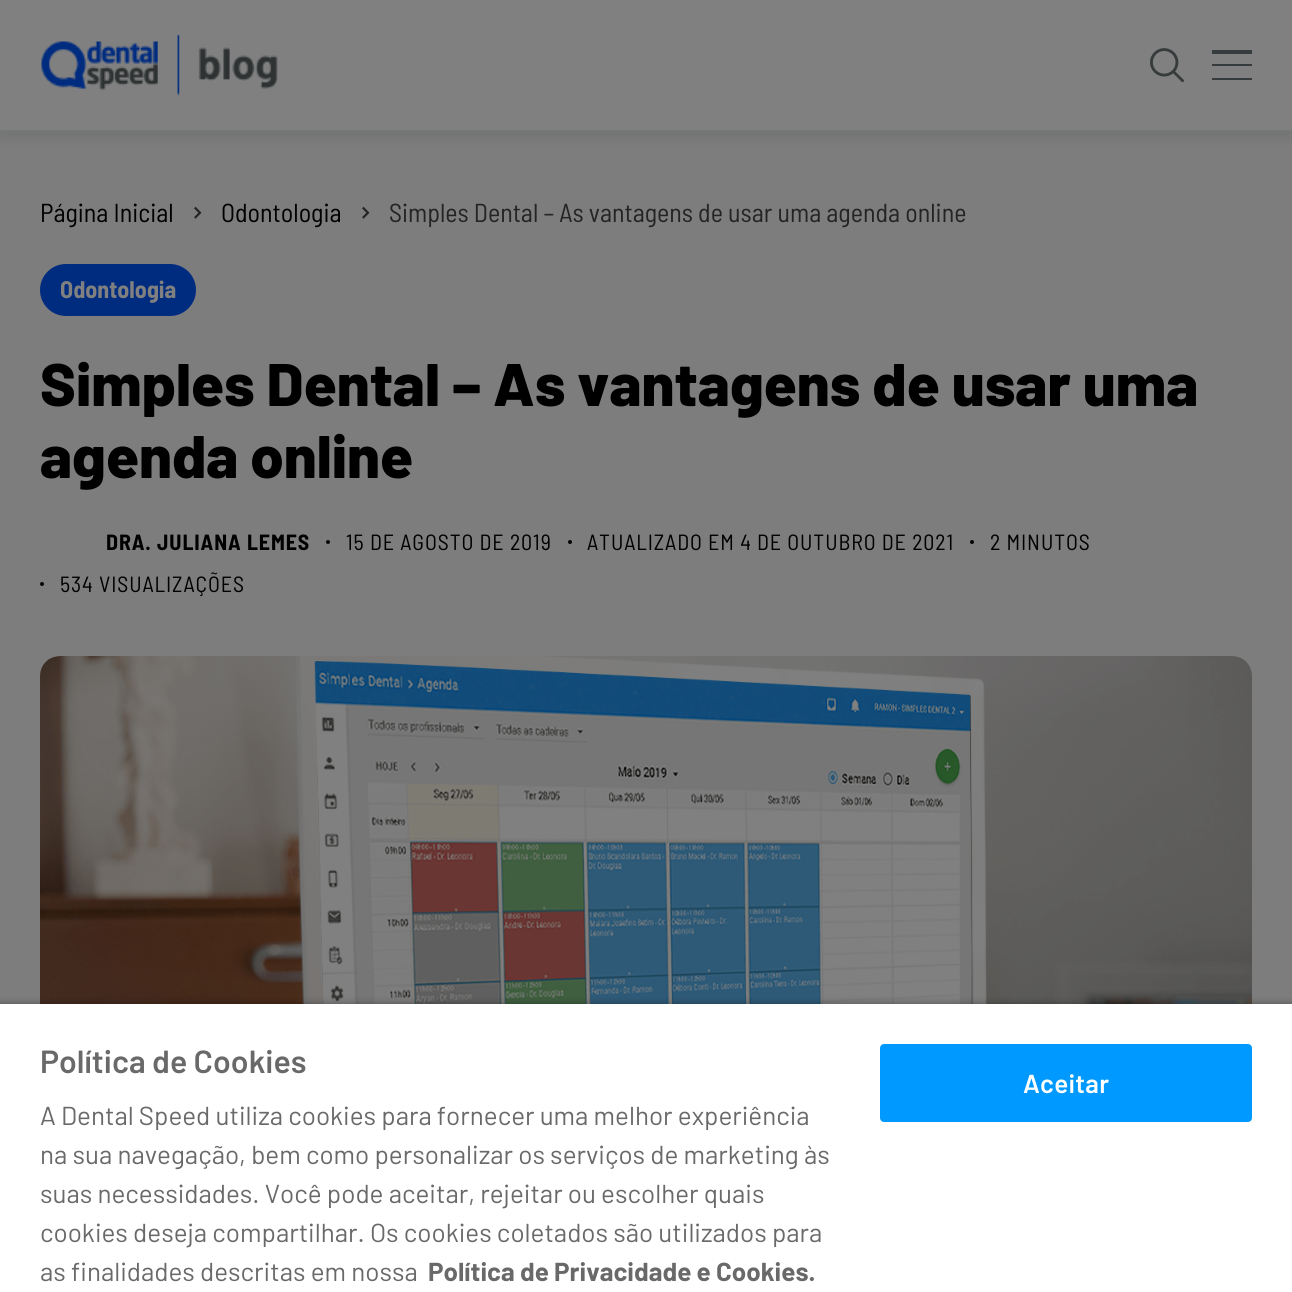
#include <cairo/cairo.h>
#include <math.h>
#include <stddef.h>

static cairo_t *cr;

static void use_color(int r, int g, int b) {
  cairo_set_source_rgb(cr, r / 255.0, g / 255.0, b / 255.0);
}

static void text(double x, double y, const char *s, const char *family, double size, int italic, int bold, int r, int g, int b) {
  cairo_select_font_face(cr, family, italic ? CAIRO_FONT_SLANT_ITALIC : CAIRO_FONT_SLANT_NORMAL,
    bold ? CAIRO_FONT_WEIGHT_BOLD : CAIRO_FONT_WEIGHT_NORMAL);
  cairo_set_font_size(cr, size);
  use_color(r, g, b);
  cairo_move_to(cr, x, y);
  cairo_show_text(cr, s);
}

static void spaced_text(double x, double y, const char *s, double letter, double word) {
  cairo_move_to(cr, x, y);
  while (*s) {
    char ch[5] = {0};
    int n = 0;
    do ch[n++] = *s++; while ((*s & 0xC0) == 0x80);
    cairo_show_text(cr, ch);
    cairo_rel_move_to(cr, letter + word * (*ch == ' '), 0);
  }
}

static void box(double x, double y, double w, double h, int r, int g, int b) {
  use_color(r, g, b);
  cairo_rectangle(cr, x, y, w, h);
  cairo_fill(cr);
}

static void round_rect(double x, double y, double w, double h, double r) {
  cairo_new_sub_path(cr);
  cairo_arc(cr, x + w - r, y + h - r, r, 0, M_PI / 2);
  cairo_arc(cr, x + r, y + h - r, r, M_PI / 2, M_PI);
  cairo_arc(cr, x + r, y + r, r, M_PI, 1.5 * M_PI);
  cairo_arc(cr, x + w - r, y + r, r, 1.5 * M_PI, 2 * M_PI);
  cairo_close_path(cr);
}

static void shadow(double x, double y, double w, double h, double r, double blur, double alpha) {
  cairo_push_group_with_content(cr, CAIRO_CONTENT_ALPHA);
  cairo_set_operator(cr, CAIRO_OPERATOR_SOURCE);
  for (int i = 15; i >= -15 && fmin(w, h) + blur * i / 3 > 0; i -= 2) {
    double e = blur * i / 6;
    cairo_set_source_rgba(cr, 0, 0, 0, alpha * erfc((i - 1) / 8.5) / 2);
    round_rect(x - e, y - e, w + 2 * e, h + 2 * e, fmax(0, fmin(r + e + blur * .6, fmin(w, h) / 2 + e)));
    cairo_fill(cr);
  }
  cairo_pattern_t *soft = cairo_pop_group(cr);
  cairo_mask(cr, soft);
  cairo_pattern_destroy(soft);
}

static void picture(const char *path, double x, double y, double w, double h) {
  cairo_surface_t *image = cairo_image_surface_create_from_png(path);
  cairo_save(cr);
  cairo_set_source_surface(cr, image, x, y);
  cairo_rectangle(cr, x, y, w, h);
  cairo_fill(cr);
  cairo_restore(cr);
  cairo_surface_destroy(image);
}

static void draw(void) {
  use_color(125, 125, 125);
  cairo_paint(cr);
  use_color(28, 42, 51);
  shadow(0, 4, 1292, 132, 0, 8, 0.15);
  box(0, 0, 1292, 130, 128, 128, 128);
  box(0, 130, 1292, 2, 119, 119, 118);
  picture("img_01.png", 41, 34, 237, 62);
  picture("img_02.png", 1150, 48, 34, 35);
  box(1212, 50, 40, 4, 54, 59, 61);
  box(1212, 64, 40, 2, 54, 59, 61);
  box(1212, 78, 40, 2, 54, 59, 61);
  picture("img_03.png", 194, 206, 8, 13);
  picture("img_03.png", 362, 206, 8, 13);
  use_color(0, 44, 128);
  round_rect(40, 264, 156, 52, 26);
  cairo_fill(cr);
  use_color(5, 5, 5);
  cairo_arc(cr, 328, 542, 2, 0, 2 * M_PI);
  cairo_fill(cr);
  cairo_arc(cr, 570, 542, 2, 0, 2 * M_PI);
  cairo_fill(cr);
  cairo_arc(cr, 972, 542, 2, 0, 2 * M_PI);
  cairo_fill(cr);
  cairo_arc(cr, 42, 584, 2, 0, 2 * M_PI);
  cairo_fill(cr);
  picture("img_04.png", 40, 656, 1212, 348);
  use_color(0, 0, 0);
  shadow(0, 1004, 1292, 288, 0, 4, 0.35);
  box(0, 1004, 1292, 288, 255, 255, 255);
  use_color(0, 153, 255);
  round_rect(881, 1045, 370, 76, 3);
  cairo_fill_preserve(cr);
  cairo_stroke(cr);
  text(40, 222, "Página Inicial", "Barlow Semi Condensed", 26, 0, 0, 0, 0, 0);
  text(221, 222, "Odontologia", "Barlow Semi Condensed", 26, 0, 0, 0, 0, 0);
  text(389, 222, "Simples Dental – As vantagens de usar uma agenda online", "Barlow Semi Condensed", 26, 0, 0, 36, 36, 36);
  text(60, 298, "Odontologia", "Barlow Semi Condensed", 24, 0, 1, 128, 128, 128);
  text(40, 406, "Simples Dental – As vantagens de usar uma", "Barlow ExtraBold", 60, 0, 0, 0, 0, 0);
  text(40, 478, "agenda online", "Barlow ExtraBold", 60, 0, 0, 0, 0, 0);
  cairo_select_font_face(cr, "Barlow Semi Condensed", CAIRO_FONT_SLANT_NORMAL, CAIRO_FONT_WEIGHT_BOLD);
  cairo_set_font_size(cr, 22);
  spaced_text(106, 550, "DRA. JULIANA LEMES", 0.9, 0);
  cairo_select_font_face(cr, "Barlow Semi Condensed", CAIRO_FONT_SLANT_NORMAL, CAIRO_FONT_WEIGHT_NORMAL);
  spaced_text(346, 550, "15 DE AGOSTO DE 2019", 0.9, 0);
  spaced_text(587, 550, "ATUALIZADO EM 4 DE OUTUBRO DE 2021", 0.9, 0);
  spaced_text(990, 550, "2 MINUTOS", 0.9, 0);
  spaced_text(60, 592, "534 VISUALIZAÇÕES", 0.9, 0);
  text(40, 1073, "Política de Cookies", "Barlow SemiBold", 32, 0, 0, 105, 105, 105);
  text(40, 1125, "A Dental Speed utiliza cookies para fornecer uma melhor experiência", "Barlow", 26, 0, 0, 105, 105, 105);
  text(40, 1164, "na sua navegação, bem como personalizar os serviços de marketing às", "Barlow", 26, 0, 0, 105, 105, 105);
  text(40, 1203, "suas necessidades. Você pode aceitar, rejeitar ou escolher quais", "Barlow", 26, 0, 0, 105, 105, 105);
  text(40, 1242, "cookies deseja compartilhar. Os cookies coletados são utilizados para", "Barlow", 26, 0, 0, 105, 105, 105);
  text(40, 1281, "as finalidades descritas em nossa", "Barlow", 26, 0, 0, 105, 105, 105);
  text(428, 1281, "Política de Privacidade e Cookies.", "Barlow", 26, 0, 1, 105, 105, 105);
  cairo_select_font_face(cr, "Barlow SemiBold", CAIRO_FONT_SLANT_NORMAL, CAIRO_FONT_WEIGHT_NORMAL);
  use_color(255, 255, 255);
  spaced_text(1023, 1093, "Aceitar", 0.25, 0);
}

int main(void) {
  cairo_surface_t *surface = cairo_image_surface_create(CAIRO_FORMAT_RGB24, 1292, 1292);
  cr = cairo_create(surface);
  cairo_font_options_t *options = cairo_font_options_create();
  cairo_font_options_set_hint_metrics(options, CAIRO_HINT_METRICS_OFF);
  cairo_font_options_set_hint_style(options, CAIRO_HINT_STYLE_NONE);
  cairo_set_font_options(cr, options);
  cairo_set_miter_limit(cr, 4);
  draw();
  cairo_surface_write_to_png(surface, "out.png");
  cairo_font_options_destroy(options);
  cairo_destroy(cr);
  cairo_surface_destroy(surface);
  return 0;
}
